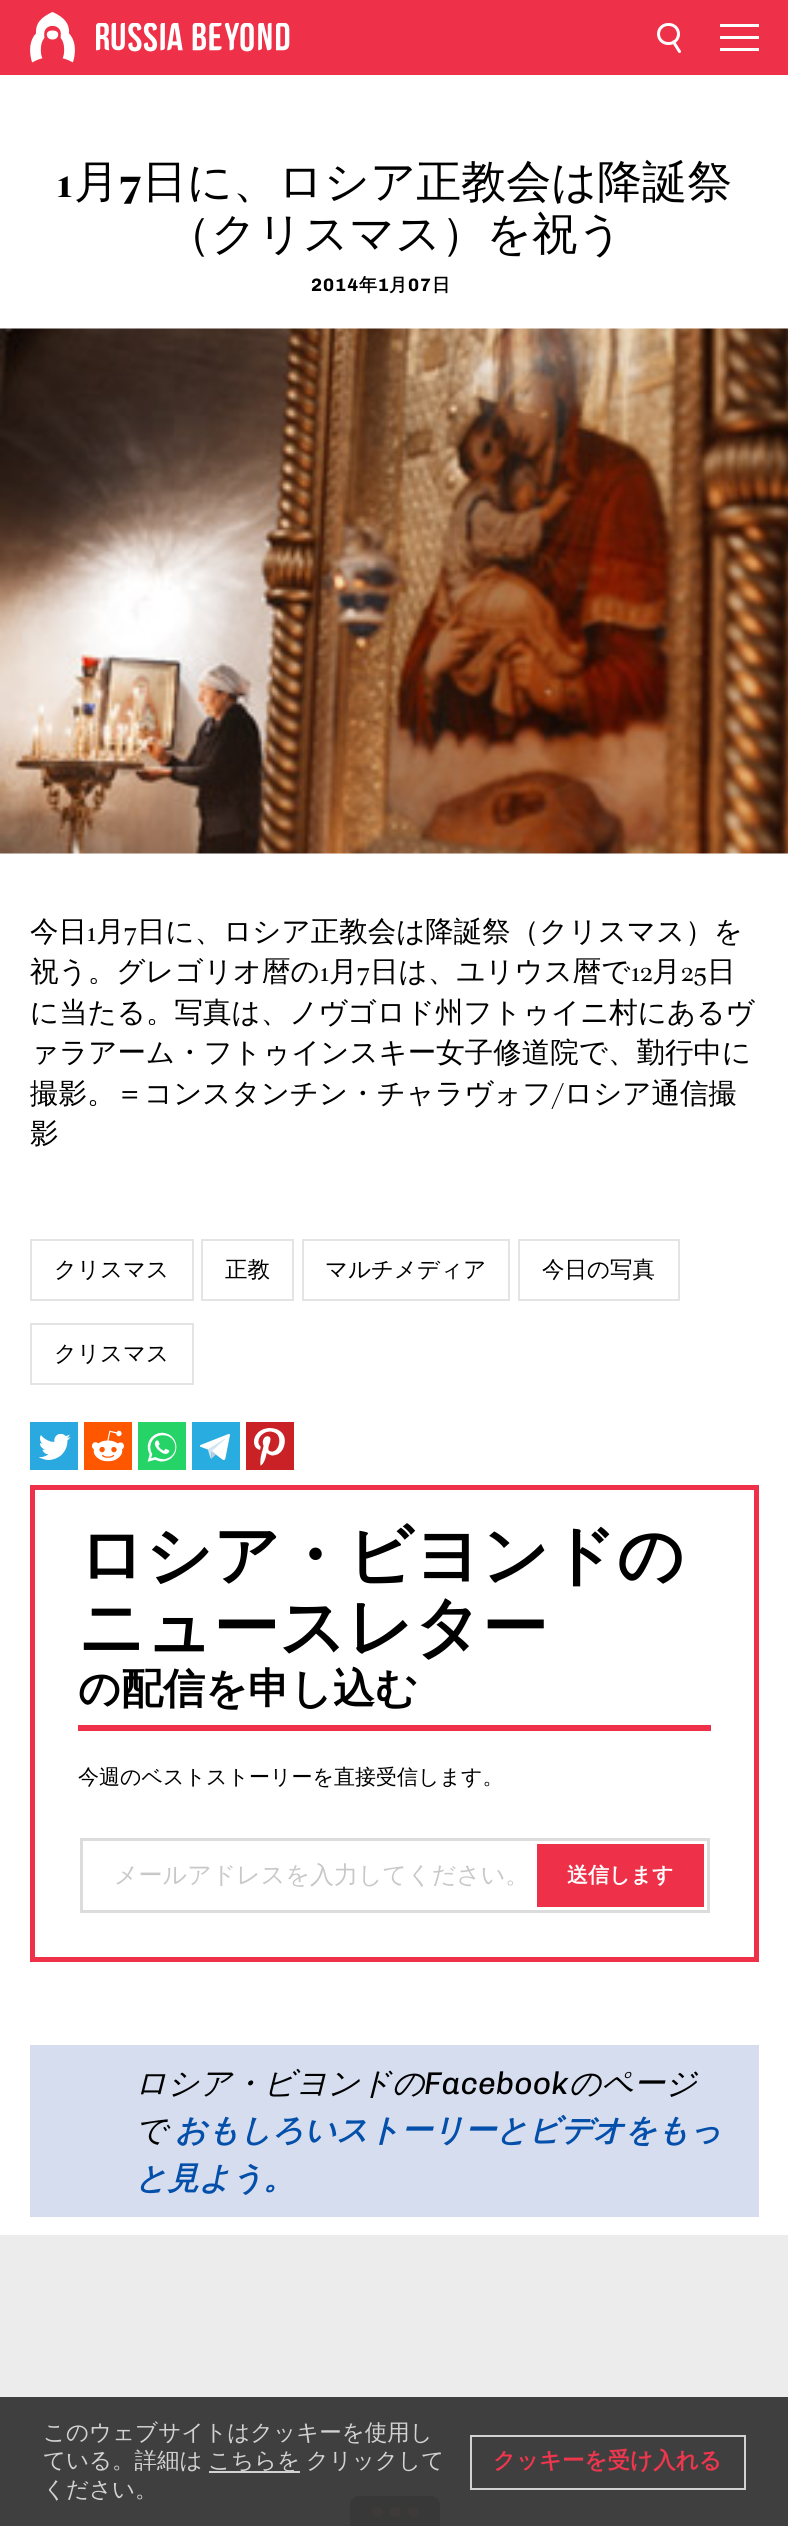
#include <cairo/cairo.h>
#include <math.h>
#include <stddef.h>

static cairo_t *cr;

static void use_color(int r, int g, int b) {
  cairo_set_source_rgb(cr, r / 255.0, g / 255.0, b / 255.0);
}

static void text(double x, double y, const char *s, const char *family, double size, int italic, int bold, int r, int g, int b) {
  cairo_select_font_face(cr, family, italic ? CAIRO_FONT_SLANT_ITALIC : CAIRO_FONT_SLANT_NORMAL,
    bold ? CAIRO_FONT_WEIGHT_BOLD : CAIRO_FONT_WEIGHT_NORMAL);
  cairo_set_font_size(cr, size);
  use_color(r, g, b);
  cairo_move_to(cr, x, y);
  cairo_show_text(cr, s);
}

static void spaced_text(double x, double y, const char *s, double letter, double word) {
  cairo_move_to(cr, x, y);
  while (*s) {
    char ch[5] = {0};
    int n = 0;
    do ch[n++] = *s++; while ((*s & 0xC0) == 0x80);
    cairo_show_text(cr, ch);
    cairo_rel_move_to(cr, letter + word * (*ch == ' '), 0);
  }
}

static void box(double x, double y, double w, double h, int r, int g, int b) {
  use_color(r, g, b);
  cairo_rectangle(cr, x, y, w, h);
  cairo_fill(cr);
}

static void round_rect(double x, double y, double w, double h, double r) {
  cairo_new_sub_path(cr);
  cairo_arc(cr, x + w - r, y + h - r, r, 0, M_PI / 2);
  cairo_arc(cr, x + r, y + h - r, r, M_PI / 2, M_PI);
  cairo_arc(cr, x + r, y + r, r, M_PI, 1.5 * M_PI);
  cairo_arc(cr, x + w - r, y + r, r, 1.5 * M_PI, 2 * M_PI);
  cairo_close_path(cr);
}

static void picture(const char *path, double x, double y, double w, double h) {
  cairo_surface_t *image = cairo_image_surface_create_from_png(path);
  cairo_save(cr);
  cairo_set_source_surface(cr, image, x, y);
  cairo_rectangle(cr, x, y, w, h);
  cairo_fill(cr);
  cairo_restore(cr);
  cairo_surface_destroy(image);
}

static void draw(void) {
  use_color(236, 236, 236);
  cairo_paint(cr);
  box(0, 2397, 788, 129, 63, 63, 63);
  box(0, 0, 788, 75, 238, 48, 72);
  picture("img_01.png", 30, 12, 45, 51);
  picture("img_02.png", 96, 23, 194, 29);
  round_rect(658.5, 24.5, 20, 19, 9.5);
  use_color(255, 255, 255);
  cairo_set_line_width(cr, 3);
  cairo_stroke(cr);
  cairo_new_path(cr);
  cairo_move_to(cr, 673.5, 42);
  cairo_line_to(cr, 679.5, 51.5);
  cairo_set_line_cap(cr, CAIRO_LINE_CAP_ROUND);
  cairo_stroke(cr);
  cairo_set_fill_rule(cr, CAIRO_FILL_RULE_EVEN_ODD);
  cairo_new_path(cr);
  cairo_move_to(cr, 720, 24);
  cairo_line_to(cr, 759, 24);
  cairo_line_to(cr, 759, 27);
  cairo_line_to(cr, 720, 27);
  cairo_close_path(cr);
  cairo_move_to(cr, 720, 36);
  cairo_line_to(cr, 759, 36);
  cairo_line_to(cr, 759, 39);
  cairo_line_to(cr, 720, 39);
  cairo_close_path(cr);
  cairo_move_to(cr, 720, 48);
  cairo_line_to(cr, 759, 48);
  cairo_line_to(cr, 759, 51);
  cairo_line_to(cr, 720, 51);
  cairo_close_path(cr);
  cairo_fill(cr);
  box(0, 75, 788, 2160, 255, 255, 255);
  picture("img_03.png", 0, 328, 788, 526);
  cairo_rectangle(cr, 31, 1240, 162, 60);
  use_color(228, 228, 228);
  cairo_set_line_width(cr, 2);
  cairo_set_line_cap(cr, CAIRO_LINE_CAP_BUTT);
  cairo_stroke(cr);
  cairo_rectangle(cr, 202, 1240, 91, 60);
  cairo_stroke(cr);
  cairo_rectangle(cr, 303, 1240, 206, 60);
  cairo_stroke(cr);
  cairo_rectangle(cr, 519, 1240, 160, 60);
  cairo_stroke(cr);
  cairo_rectangle(cr, 31, 1324, 162, 60);
  cairo_stroke(cr);
  picture("img_04.png", 30, 1422, 48, 48);
  picture("img_05.png", 84, 1422, 48, 48);
  picture("img_06.png", 138, 1422, 48, 48);
  picture("img_07.png", 192, 1422, 48, 48);
  picture("img_08.png", 246, 1422, 48, 48);
  cairo_rectangle(cr, 32.5, 1487.5, 724, 472);
  use_color(238, 48, 72);
  cairo_set_line_width(cr, 5);
  cairo_stroke(cr);
  box(78, 1725, 633, 6, 238, 48, 72);
  cairo_rectangle(cr, 81.5, 1839.5, 627, 72);
  use_color(220, 220, 220);
  cairo_set_line_width(cr, 3);
  cairo_stroke(cr);
  box(537, 1844, 167, 63, 238, 48, 72);
  box(30, 2045, 729, 172, 213, 221, 239);
  use_color(56, 56, 56);
  cairo_new_path(cr);
  cairo_move_to(cr, 359, 2496);
  cairo_line_to(cr, 431, 2496);
  cairo_curve_to(cr, 436, 2496, 440, 2500, 440, 2505);
  cairo_line_to(cr, 440, 2526);
  cairo_line_to(cr, 350, 2526);
  cairo_line_to(cr, 350, 2505);
  cairo_curve_to(cr, 350, 2500, 354, 2496, 359, 2496);
  cairo_close_path(cr);
  cairo_fill(cr);
  use_color(63, 58, 58);
  round_rect(372, 2507, 11, 10, 5);
  cairo_fill(cr);
  round_rect(390, 2507, 11, 10, 5);
  cairo_fill(cr);
  round_rect(408, 2507, 11, 10, 5);
  cairo_fill(cr);
  box(209, 2471, 91, 2, 210, 210, 210);
  cairo_rectangle(cr, 471, 2436, 274, 53);
  cairo_set_line_width(cr, 2);
  cairo_stroke(cr);
  text(56, 197, "1", "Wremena", 45, 0, 1, 0, 0, 0);
  text(74, 197, "月", "WenQuanYi Zen Hei Medium", 45, 0, 0, 0, 0, 0);
  text(119, 197, "7", "Wremena", 45, 0, 1, 0, 0, 0);
  text(142, 197, "日に、ロシア正教会は降誕祭", "WenQuanYi Zen Hei Medium", 45, 0, 0, 0, 0, 0);
  text(166, 249, "（クリスマス）を祝う", "WenQuanYi Zen Hei Medium", 45, 0, 0, 0, 0, 0);
  cairo_select_font_face(cr, "Chivo", CAIRO_FONT_SLANT_NORMAL, CAIRO_FONT_WEIGHT_BOLD);
  cairo_set_font_size(cr, 18);
  spaced_text(311, 291, "2014", 1, 0);
  cairo_select_font_face(cr, "WenQuanYi Zen Hei", CAIRO_FONT_SLANT_NORMAL, CAIRO_FONT_WEIGHT_BOLD);
  spaced_text(359, 291, "年", 1, 0);
  cairo_select_font_face(cr, "Chivo", CAIRO_FONT_SLANT_NORMAL, CAIRO_FONT_WEIGHT_BOLD);
  spaced_text(378, 291, "1", 1, 0);
  cairo_select_font_face(cr, "WenQuanYi Zen Hei", CAIRO_FONT_SLANT_NORMAL, CAIRO_FONT_WEIGHT_BOLD);
  spaced_text(389, 291, "月", 1, 0);
  cairo_select_font_face(cr, "Chivo", CAIRO_FONT_SLANT_NORMAL, CAIRO_FONT_WEIGHT_BOLD);
  spaced_text(408, 291, "07", 1, 0);
  cairo_select_font_face(cr, "WenQuanYi Zen Hei", CAIRO_FONT_SLANT_NORMAL, CAIRO_FONT_WEIGHT_BOLD);
  spaced_text(432, 291, "日", 1, 0);
  text(30, 941, "今日", "WenQuanYi Zen Hei Medium", 28.5, 0, 0, 0, 0, 0);
  text(87, 941, "1", "Wremena", 28.5, 0, 0, 0, 0, 0);
  text(96, 941, "月", "WenQuanYi Zen Hei Medium", 28.5, 0, 0, 0, 0, 0);
  text(124, 941, "7", "Wremena", 28.5, 0, 0, 0, 0, 0);
  text(137, 941, "日に、ロシア正教会は降誕祭（クリスマス）を", "WenQuanYi Zen Hei Medium", 28.5, 0, 0, 0, 0, 0);
  text(30, 981, "祝う。グレゴリオ暦の", "WenQuanYi Zen Hei Medium", 28.5, 0, 0, 0, 0, 0);
  text(320, 981, "1", "Wremena", 28.5, 0, 0, 0, 0, 0);
  text(329, 981, "月", "WenQuanYi Zen Hei Medium", 28.5, 0, 0, 0, 0, 0);
  text(357, 981, "7", "Wremena", 28.5, 0, 0, 0, 0, 0);
  text(370, 981, "日は、ユリウス暦で", "WenQuanYi Zen Hei Medium", 28.5, 0, 0, 0, 0, 0);
  text(631, 981, "12", "Wremena", 28.5, 0, 0, 0, 0, 0);
  text(652, 981, "月", "WenQuanYi Zen Hei Medium", 28.5, 0, 0, 0, 0, 0);
  text(681, 981, "25", "Wremena", 28.5, 0, 0, 0, 0, 0);
  text(707, 981, "日", "WenQuanYi Zen Hei Medium", 28.5, 0, 0, 0, 0, 0);
  text(30, 1022, "に当たる。写真は、ノヴゴロド州フトゥイニ村にあるヴ", "WenQuanYi Zen Hei Medium", 28.5, 0, 0, 0, 0, 0);
  text(30, 1062, "ァラアーム・フトゥインスキー女子修道院で、勤行中に", "WenQuanYi Zen Hei Medium", 28.5, 0, 0, 0, 0, 0);
  text(30, 1103, "撮影。＝コンスタンチン・チャラヴォフ", "WenQuanYi Zen Hei Medium", 28.5, 0, 0, 0, 0, 0);
  text(552, 1103, "/", "Wremena", 28.5, 0, 0, 0, 0, 0);
  text(564, 1103, "ロシア通信撮", "WenQuanYi Zen Hei Medium", 28.5, 0, 0, 0, 0, 0);
  text(30, 1143, "影", "WenQuanYi Zen Hei Medium", 28.5, 0, 0, 0, 0, 0);
  text(54, 1277, "クリスマス", "WenQuanYi Zen Hei Medium", 22.5, 0, 0, 0, 0, 0);
  text(225, 1277, "正教", "WenQuanYi Zen Hei Medium", 22.5, 0, 0, 0, 0, 0);
  text(325, 1277, "マルチメディア", "WenQuanYi Zen Hei Medium", 22.5, 0, 0, 0, 0, 0);
  text(542, 1277, "今日の写真", "WenQuanYi Zen Hei Medium", 22.5, 0, 0, 0, 0, 0);
  text(54, 1361, "クリスマス", "WenQuanYi Zen Hei Medium", 22.5, 0, 0, 0, 0, 0);
  text(78, 1578, "ロシア・ビヨンドの", "WenQuanYi Zen Hei", 66, 0, 1, 0, 0, 0);
  text(78, 1650, "ニュースレター", "WenQuanYi Zen Hei", 66, 0, 1, 0, 0, 0);
  text(78, 1703, "の配信を申し込む", "WenQuanYi Zen Hei", 42, 0, 1, 0, 0, 0);
  text(78, 1784, "今週のベストストーリーを直接受信します。", "WenQuanYi Zen Hei Medium", 21, 0, 0, 0, 0, 0);
  text(114, 1883, "メールアドレスを入力してください。", "WenQuanYi Zen Hei Medium", 24, 0, 0, 200, 200, 200);
  text(567, 1882, "送信します", "WenQuanYi Zen Hei", 21, 0, 1, 255, 255, 255);
  text(135, 2094, "ロシア・ビヨンドの", "WenQuanYi Zen Hei Medium", 31.5, 1, 0, 0, 0, 0);
  text(424, 2094, "Facebook", "Chivo", 31.5, 1, 0, 0, 0, 0);
  text(569, 2094, "のページ", "WenQuanYi Zen Hei Medium", 31.5, 1, 0, 0, 0, 0);
  text(135, 2141, "で", "WenQuanYi Zen Hei Medium", 31.5, 1, 0, 0, 0, 0);
  text(175, 2141, "おもしろいストーリーとビデオをもっ", "WenQuanYi Zen Hei", 31.5, 1, 1, 4, 79, 170);
  text(135, 2189, "と見よう。", "WenQuanYi Zen Hei", 31.5, 1, 1, 4, 79, 170);
  text(43, 2440, "このウェブサイトはクッキーを使用し", "WenQuanYi Zen Hei Medium", 22.5, 0, 0, 210, 210, 210);
  text(43, 2468, "ている。詳細は", "WenQuanYi Zen Hei Medium", 22.5, 0, 0, 210, 210, 210);
  text(208, 2468, "こちらを", "WenQuanYi Zen Hei Medium", 22.5, 0, 0, 210, 210, 210);
  text(306, 2468, "クリックして", "WenQuanYi Zen Hei Medium", 22.5, 0, 0, 210, 210, 210);
  text(43, 2497, "ください。", "WenQuanYi Zen Hei Medium", 22.5, 0, 0, 210, 210, 210);
  text(493, 2468, "クッキーを受け入れる", "WenQuanYi Zen Hei", 22.5, 0, 1, 238, 54, 77);
}

int main(void) {
  cairo_surface_t *surface = cairo_image_surface_create(CAIRO_FORMAT_RGB24, 788, 2526);
  cr = cairo_create(surface);
  cairo_font_options_t *options = cairo_font_options_create();
  cairo_font_options_set_hint_metrics(options, CAIRO_HINT_METRICS_OFF);
  cairo_font_options_set_hint_style(options, CAIRO_HINT_STYLE_NONE);
  cairo_set_font_options(cr, options);
  cairo_set_miter_limit(cr, 4);
  draw();
  cairo_surface_write_to_png(surface, "out.png");
  cairo_font_options_destroy(options);
  cairo_destroy(cr);
  cairo_surface_destroy(surface);
  return 0;
}
